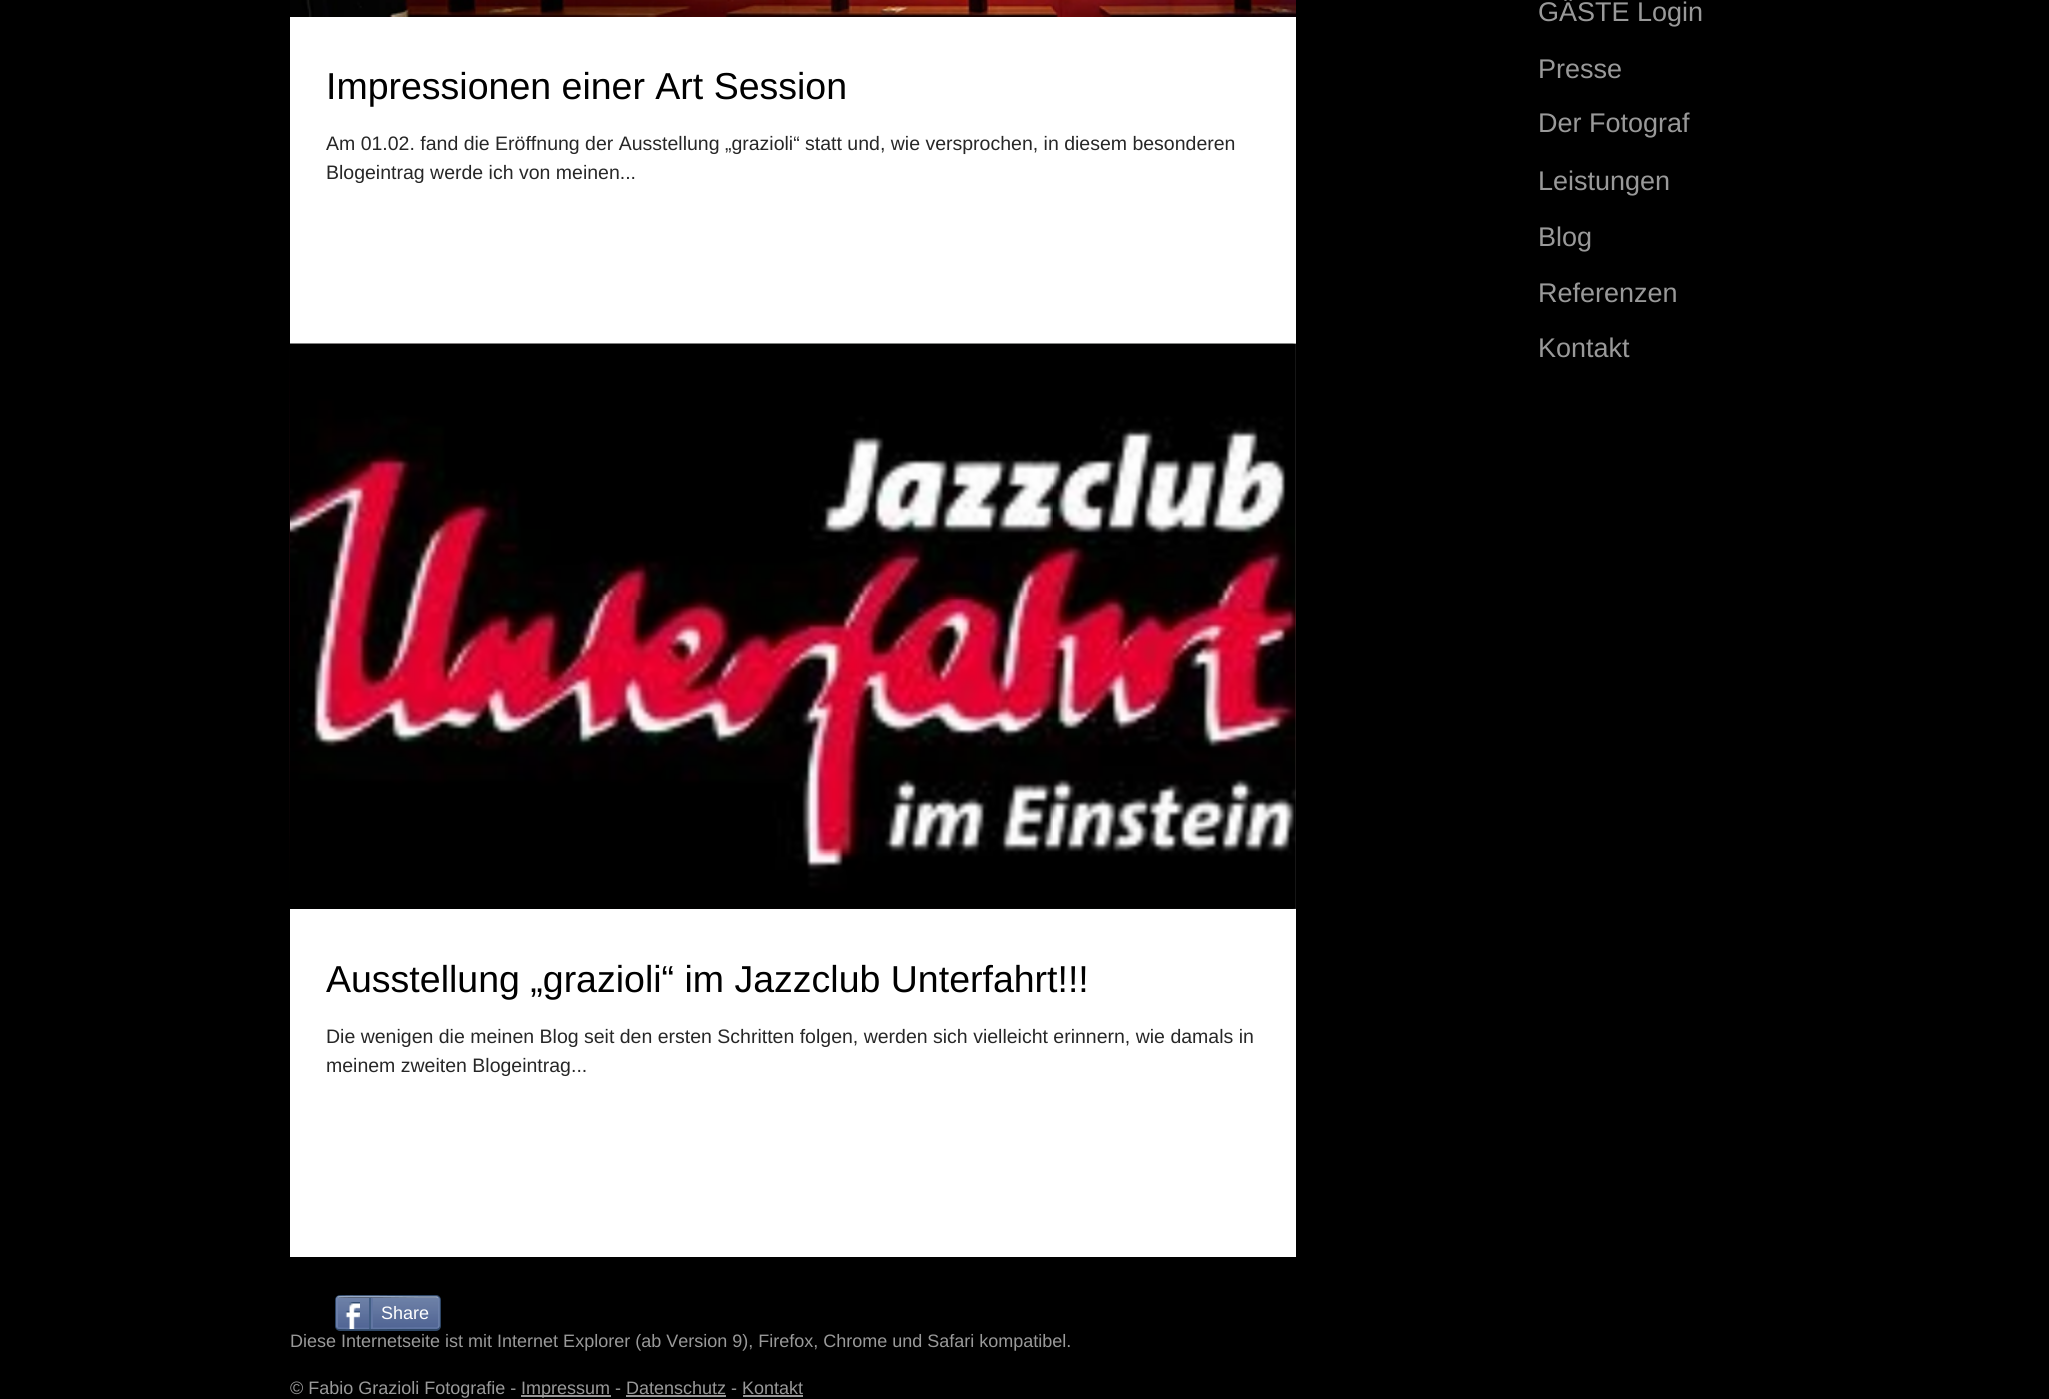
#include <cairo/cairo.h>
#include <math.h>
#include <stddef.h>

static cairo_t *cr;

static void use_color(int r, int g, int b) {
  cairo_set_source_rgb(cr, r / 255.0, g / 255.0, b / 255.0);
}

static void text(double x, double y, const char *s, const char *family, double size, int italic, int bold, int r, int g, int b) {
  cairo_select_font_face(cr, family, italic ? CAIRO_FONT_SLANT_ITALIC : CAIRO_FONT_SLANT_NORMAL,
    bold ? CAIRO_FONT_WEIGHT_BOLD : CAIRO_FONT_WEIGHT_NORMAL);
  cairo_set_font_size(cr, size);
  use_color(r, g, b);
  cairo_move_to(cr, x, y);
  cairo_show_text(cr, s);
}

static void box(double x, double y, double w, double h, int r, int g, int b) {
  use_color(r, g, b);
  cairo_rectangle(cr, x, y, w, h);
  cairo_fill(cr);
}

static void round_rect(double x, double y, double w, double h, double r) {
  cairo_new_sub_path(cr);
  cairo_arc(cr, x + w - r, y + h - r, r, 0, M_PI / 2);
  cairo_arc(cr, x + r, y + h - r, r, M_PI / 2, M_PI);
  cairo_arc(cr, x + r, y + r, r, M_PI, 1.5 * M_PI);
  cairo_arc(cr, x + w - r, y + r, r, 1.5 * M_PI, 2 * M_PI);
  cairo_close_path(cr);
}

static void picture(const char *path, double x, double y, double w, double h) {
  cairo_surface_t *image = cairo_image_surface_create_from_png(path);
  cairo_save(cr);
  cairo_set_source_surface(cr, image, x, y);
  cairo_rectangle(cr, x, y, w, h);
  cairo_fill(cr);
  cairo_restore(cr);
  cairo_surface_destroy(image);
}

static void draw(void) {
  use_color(0, 0, 0);
  cairo_paint(cr);
  box(290, 17, 1006, 1240, 255, 255, 255);
  picture("img_01.png", 290, 0, 1006, 17);
  picture("img_02.png", 289, 343, 1007, 566);
  picture("img_03.png", 290, 344, 1006, 565);
  round_rect(336, 1296, 104, 34, 4);
  use_color(45, 69, 101);
  cairo_stroke(cr);
  picture("img_04.png", 336, 1297, 104, 32);
  cairo_new_path(cr);
  cairo_move_to(cr, 337.5, 1297.5);
  cairo_line_to(cr, 338, 1297);
  cairo_curve_to(cr, 339.5, 1296, 412, 1297, 420, 1297);
  cairo_line_to(cr, 436.5, 1297);
  cairo_line_to(cr, 438, 1297.5);
  use_color(154, 171, 198);
  cairo_set_line_width(cr, 1.5);
  cairo_stroke(cr);
  cairo_new_path(cr);
  cairo_move_to(cr, 438, 1297.5);
  cairo_curve_to(cr, 438.5, 1298, 439, 1298.5, 439, 1299);
  cairo_line_to(cr, 439, 1326);
  cairo_curve_to(cr, 439, 1326.5, 438.5, 1327, 438, 1327.5);
  use_color(111, 131, 173);
  cairo_stroke(cr);
  cairo_new_path(cr);
  cairo_move_to(cr, 438, 1327.5);
  cairo_line_to(cr, 436.5, 1328);
  cairo_line_to(cr, 420, 1328);
  cairo_curve_to(cr, 412, 1328, 339.5, 1329, 338, 1328);
  cairo_line_to(cr, 337.5, 1327.5);
  use_color(97, 118, 163);
  cairo_stroke(cr);
  cairo_new_path(cr);
  cairo_move_to(cr, 337.5, 1327.5);
  cairo_curve_to(cr, 337, 1327, 337, 1326.5, 337, 1326);
  cairo_line_to(cr, 337, 1299);
  cairo_curve_to(cr, 337, 1298.5, 337, 1298, 337.5, 1297.5);
  use_color(111, 131, 173);
  cairo_stroke(cr);
  picture("img_05.png", 345, 1302, 15, 27);
  box(369, 1298, 2, 31, 66, 94, 133);
  box(371, 1298, 2, 30, 97, 118, 163);
  box(521, 1395, 90, 2, 153, 153, 153);
  box(626, 1395, 100, 2, 153, 153, 153);
  box(743, 1395, 60, 2, 153, 153, 153);
  text(326, 99, "Impressionen einer Art Session", "Liberation Sans", 37.5, 0, 0, 0, 0, 0);
  text(326, 150, "Am 01.02. fand die Eröffnung der Ausstellung „grazioli“ statt und, wie versprochen, in diesem besonderen", "Liberation Sans", 19.5, 0, 0, 39, 39, 39);
  text(326, 179, "Blogeintrag werde ich von meinen...", "Liberation Sans", 19.5, 0, 0, 39, 39, 39);
  text(326, 992, "Ausstellung „grazioli“ im Jazzclub Unterfahrt!!!", "Liberation Sans", 37.5, 0, 0, 0, 0, 0);
  text(326, 1043, "Die wenigen die meinen Blog seit den ersten Schritten folgen, werden sich vielleicht erinnern, wie damals in", "Liberation Sans", 19.5, 0, 0, 39, 39, 39);
  text(326, 1072, "meinem zweiten Blogeintrag...", "Liberation Sans", 19.5, 0, 0, 39, 39, 39);
  text(381, 1319, "Share", "Liberation Sans", 18, 0, 0, 255, 255, 255);
  text(1538, 21, "GÄSTE Login", "Liberation Sans", 27, 0, 0, 153, 153, 153);
  text(1538, 78, "Presse", "Liberation Sans", 27, 0, 0, 153, 153, 153);
  text(1538, 132, "Der Fotograf", "Liberation Sans", 27, 0, 0, 153, 153, 153);
  text(1538, 190, "Leistungen", "Liberation Sans", 27, 0, 0, 153, 153, 153);
  text(1538, 246, "Blog", "Liberation Sans", 27, 0, 0, 153, 153, 153);
  text(1538, 302, "Referenzen", "Liberation Sans", 27, 0, 0, 153, 153, 153);
  text(1538, 357, "Kontakt", "Liberation Sans", 27, 0, 0, 153, 153, 153);
  text(290, 1347, "Diese Internetseite ist mit Internet Explorer (ab Version 9), Firefox, Chrome und Safari kompatibel.", "Liberation Sans", 18, 0, 0, 153, 153, 153);
  text(290, 1394, "© Fabio Grazioli Fotografie -", "Liberation Sans", 18, 0, 0, 153, 153, 153);
  text(521, 1394, "Impressum - Datenschutz - Kontakt", "Liberation Sans", 18, 0, 0, 153, 153, 153);
}

int main(void) {
  cairo_surface_t *surface = cairo_image_surface_create(CAIRO_FORMAT_RGB24, 2049, 1399);
  cr = cairo_create(surface);
  cairo_font_options_t *options = cairo_font_options_create();
  cairo_font_options_set_hint_metrics(options, CAIRO_HINT_METRICS_OFF);
  cairo_font_options_set_hint_style(options, CAIRO_HINT_STYLE_NONE);
  cairo_set_font_options(cr, options);
  cairo_set_miter_limit(cr, 4);
  draw();
  cairo_surface_write_to_png(surface, "out.png");
  cairo_font_options_destroy(options);
  cairo_destroy(cr);
  cairo_surface_destroy(surface);
  return 0;
}
